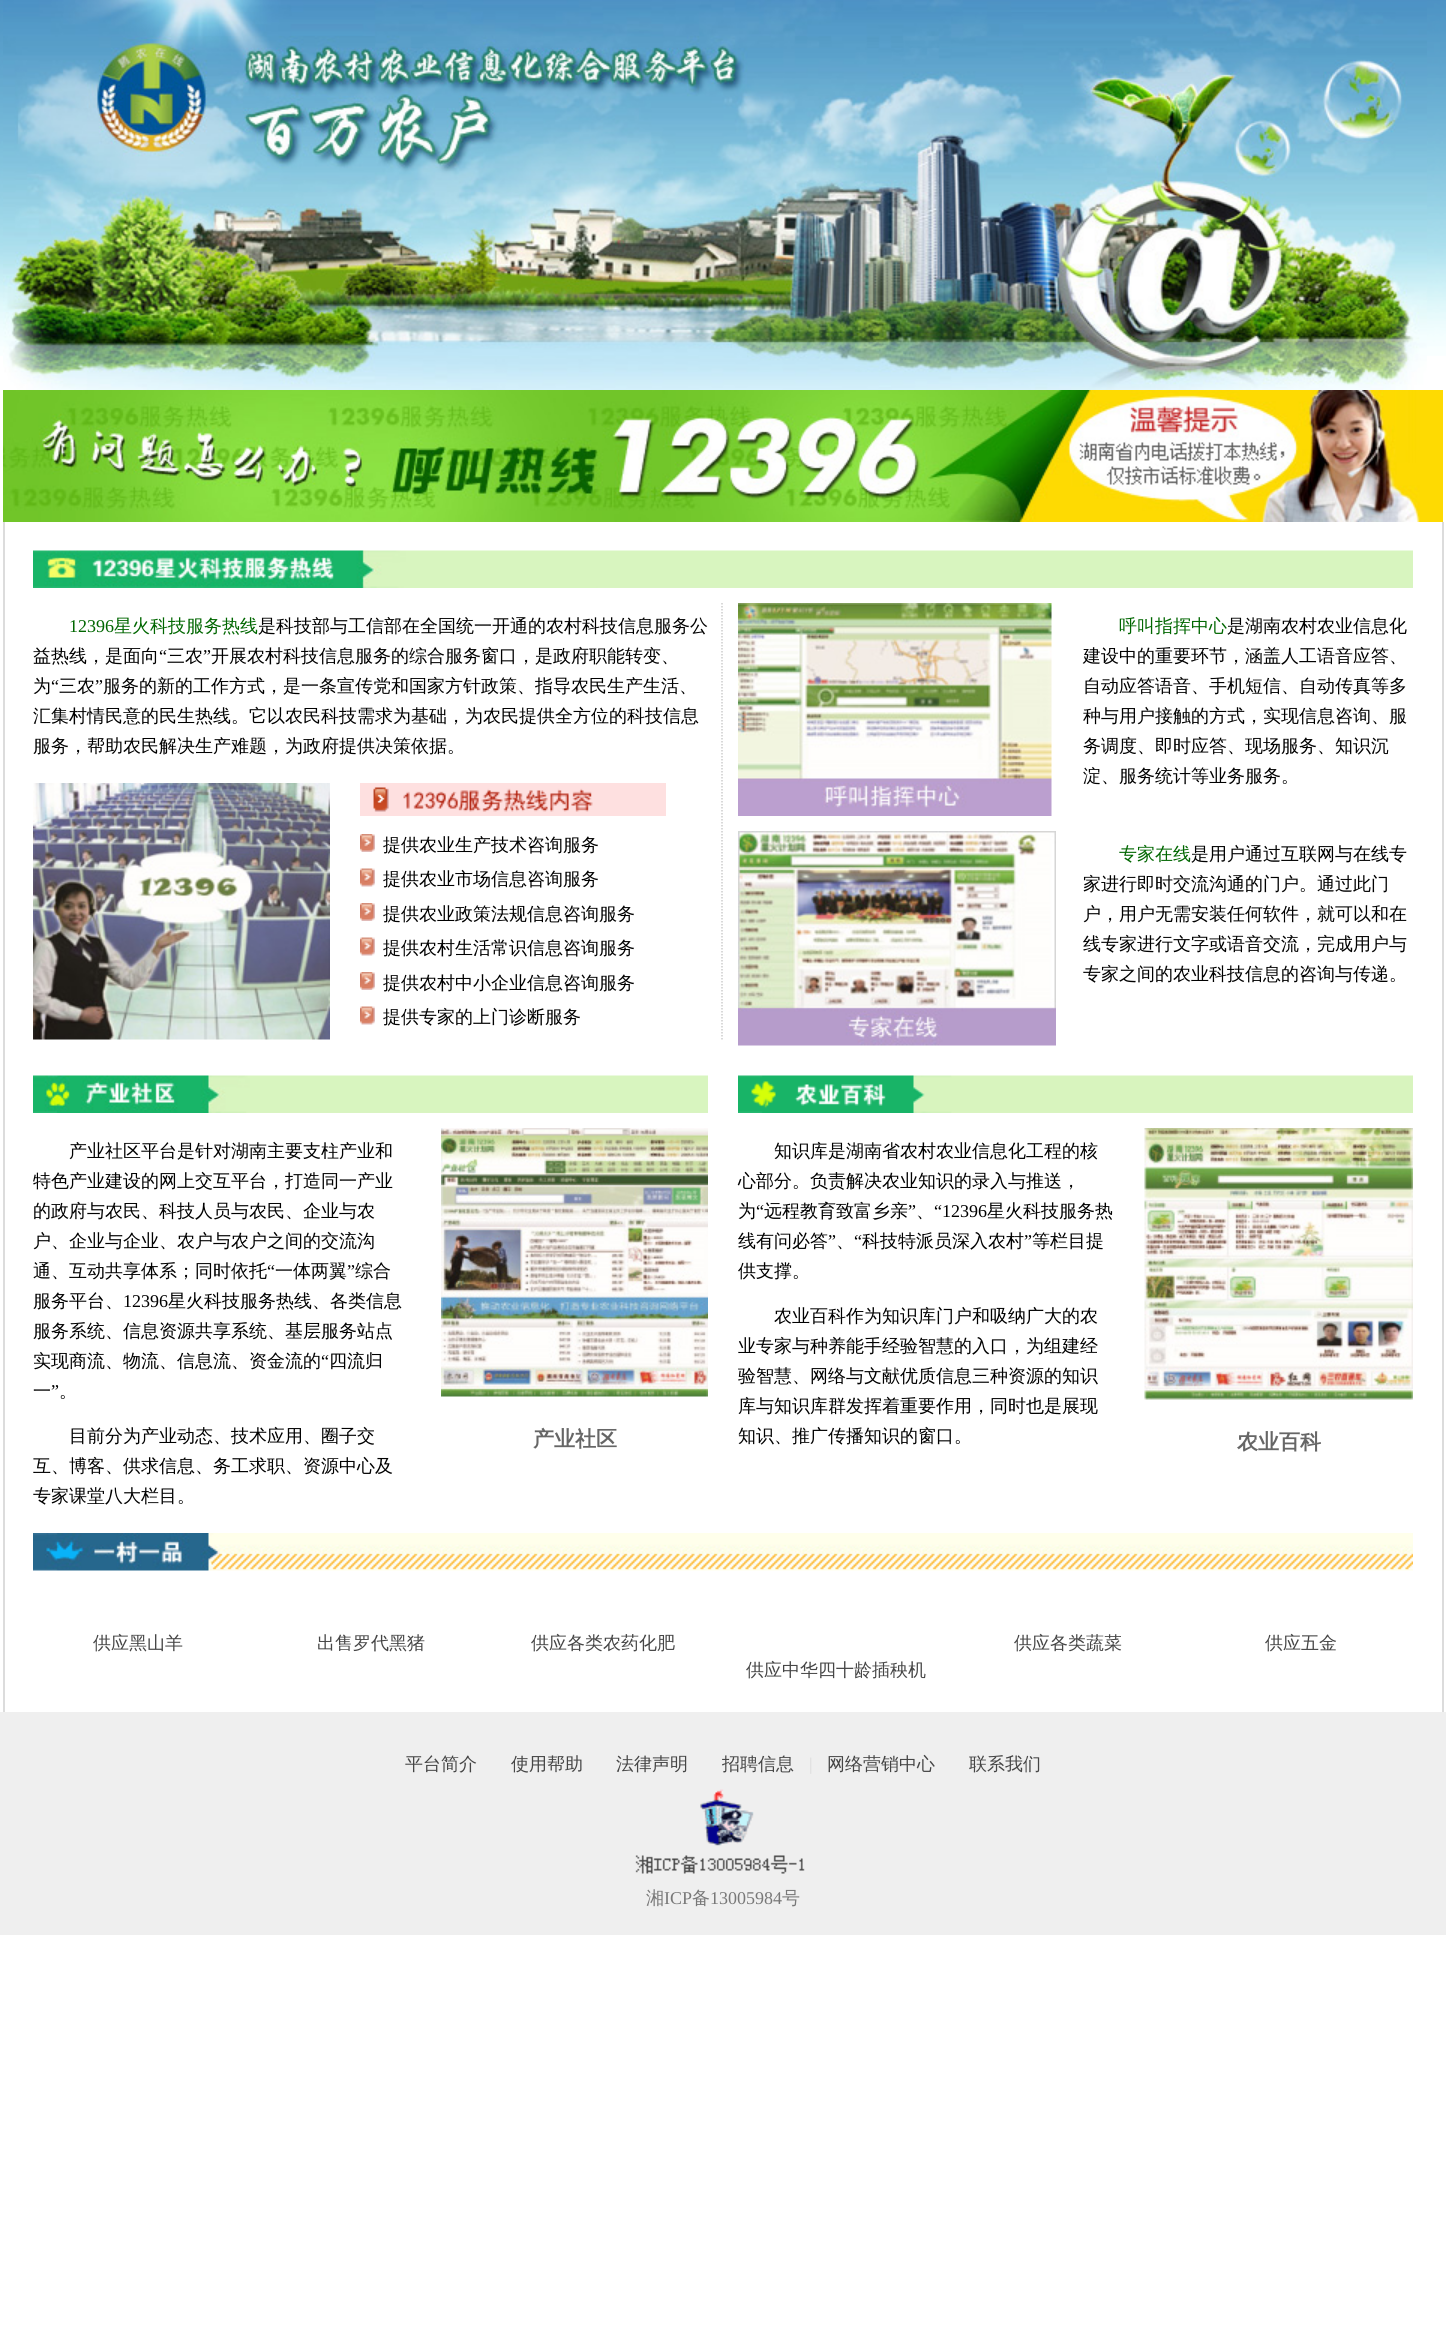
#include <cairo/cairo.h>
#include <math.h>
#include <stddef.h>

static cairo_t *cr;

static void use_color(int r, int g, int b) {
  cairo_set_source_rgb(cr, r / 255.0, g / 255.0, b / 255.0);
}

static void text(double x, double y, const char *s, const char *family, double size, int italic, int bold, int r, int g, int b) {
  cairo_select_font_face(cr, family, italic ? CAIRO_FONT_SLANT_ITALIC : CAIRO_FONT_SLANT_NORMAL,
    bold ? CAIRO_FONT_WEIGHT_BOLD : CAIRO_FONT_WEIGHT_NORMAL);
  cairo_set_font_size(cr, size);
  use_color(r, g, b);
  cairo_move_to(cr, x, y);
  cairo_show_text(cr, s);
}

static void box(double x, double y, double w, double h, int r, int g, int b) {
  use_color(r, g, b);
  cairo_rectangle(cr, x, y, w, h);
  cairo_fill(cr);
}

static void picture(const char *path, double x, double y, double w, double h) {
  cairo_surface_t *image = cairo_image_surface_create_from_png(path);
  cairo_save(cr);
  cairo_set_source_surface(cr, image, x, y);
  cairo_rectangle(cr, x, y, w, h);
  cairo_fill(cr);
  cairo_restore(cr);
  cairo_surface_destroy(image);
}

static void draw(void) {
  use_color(255, 255, 255);
  cairo_paint(cr);
  picture("img_01.png", 0, 0, 1446, 356);
  picture("img_02.png", 3, 0, 1424, 390);
  picture("img_03.png", 3, 390, 1440, 132);
  box(1442, 522, 2, 1190, 220, 220, 220);
  box(3, 522, 2, 1190, 220, 220, 220);
  picture("img_04.png", 33, 550, 1380, 38);
  cairo_new_path(cr);
  cairo_move_to(cr, 722, 603);
  cairo_line_to(cr, 722, 1039.5);
  use_color(204, 204, 204);
  cairo_set_line_width(cr, 1.5);
  cairo_set_dash(cr, (double[]){1.5, 1.5}, 2, 0);
  cairo_stroke(cr);
  picture("img_05.png", 33, 783, 297, 257);
  picture("img_06.png", 360, 783, 306, 33);
  picture("img_07.png", 360, 834, 15, 18);
  picture("img_08.png", 360, 868, 15, 19);
  picture("img_07.png", 360, 903, 15, 18);
  picture("img_08.png", 360, 937, 15, 19);
  picture("img_07.png", 360, 972, 15, 18);
  picture("img_08.png", 360, 1006, 15, 19);
  picture("img_09.png", 738, 603, 314, 213);
  picture("img_10.png", 738, 831, 318, 215);
  picture("img_11.png", 33, 1075, 675, 38);
  picture("img_12.png", 441, 1128, 267, 269);
  picture("img_13.png", 738, 1075, 675, 38);
  picture("img_14.png", 1144, 1128, 269, 272);
  picture("img_15.png", 33, 1533, 1380, 38);
  box(0, 1712, 1446, 223, 239, 239, 239);
  picture("img_16.png", 635, 1789, 170, 85);
  text(69, 632, "12396", "Liberation Serif", 18, 0, 0, 0, 102, 0);
  text(114, 632, "星火科技服务热线", "WenQuanYi Zen Hei Medium", 18, 0, 0, 0, 102, 0);
  text(258, 632, "是科技部与工信部在全国统一开通的农村科技信息服务公", "WenQuanYi Zen Hei Medium", 18, 0, 0, 0, 0, 0);
  text(33, 662, "益热线，是面向", "WenQuanYi Zen Hei Medium", 18, 0, 0, 0, 0, 0);
  text(159, 662, "“", "Liberation Serif", 18, 0, 0, 0, 0, 0);
  text(167, 662, "三农", "WenQuanYi Zen Hei Medium", 18, 0, 0, 0, 0, 0);
  text(203, 662, "”", "Liberation Serif", 18, 0, 0, 0, 0, 0);
  text(211, 662, "开展农村科技信息服务的综合服务窗口，是政府职能转变、", "WenQuanYi Zen Hei Medium", 18, 0, 0, 0, 0, 0);
  text(33, 692, "为", "WenQuanYi Zen Hei Medium", 18, 0, 0, 0, 0, 0);
  text(51, 692, "“", "Liberation Serif", 18, 0, 0, 0, 0, 0);
  text(59, 692, "三农", "WenQuanYi Zen Hei Medium", 18, 0, 0, 0, 0, 0);
  text(95, 692, "”", "Liberation Serif", 18, 0, 0, 0, 0, 0);
  text(103, 692, "服务的新的工作方式，是一条宣传党和国家方针政策、指导农民生产生活、", "WenQuanYi Zen Hei Medium", 18, 0, 0, 0, 0, 0);
  text(33, 722, "汇集村情民意的民生热线。它以农民科技需求为基础，为农民提供全方位的科技信息", "WenQuanYi Zen Hei Medium", 18, 0, 0, 0, 0, 0);
  text(33, 752, "服务，帮助农民解决生产难题，为政府提供决策依据。", "WenQuanYi Zen Hei Medium", 18, 0, 0, 0, 0, 0);
  text(383, 851, "提供农业生产技术咨询服务", "WenQuanYi Zen Hei Medium", 18, 0, 0, 0, 0, 0);
  text(383, 885, "提供农业市场信息咨询服务", "WenQuanYi Zen Hei Medium", 18, 0, 0, 0, 0, 0);
  text(383, 920, "提供农业政策法规信息咨询服务", "WenQuanYi Zen Hei Medium", 18, 0, 0, 0, 0, 0);
  text(383, 954, "提供农村生活常识信息咨询服务", "WenQuanYi Zen Hei Medium", 18, 0, 0, 0, 0, 0);
  text(383, 989, "提供农村中小企业信息咨询服务", "WenQuanYi Zen Hei Medium", 18, 0, 0, 0, 0, 0);
  text(383, 1023, "提供专家的上门诊断服务", "WenQuanYi Zen Hei Medium", 18, 0, 0, 0, 0, 0);
  text(1119, 632, "呼叫指挥中心", "WenQuanYi Zen Hei Medium", 18, 0, 0, 0, 102, 0);
  text(1227, 632, "是湖南农村农业信息化", "WenQuanYi Zen Hei Medium", 18, 0, 0, 0, 0, 0);
  text(1083, 662, "建设中的重要环节，涵盖人工语音应答、", "WenQuanYi Zen Hei Medium", 18, 0, 0, 0, 0, 0);
  text(1083, 692, "自动应答语音、手机短信、自动传真等多", "WenQuanYi Zen Hei Medium", 18, 0, 0, 0, 0, 0);
  text(1083, 722, "种与用户接触的方式，实现信息咨询、服", "WenQuanYi Zen Hei Medium", 18, 0, 0, 0, 0, 0);
  text(1083, 752, "务调度、即时应答、现场服务、知识沉", "WenQuanYi Zen Hei Medium", 18, 0, 0, 0, 0, 0);
  text(1083, 782, "淀、服务统计等业务服务。", "WenQuanYi Zen Hei Medium", 18, 0, 0, 0, 0, 0);
  text(1119, 860, "专家在线", "WenQuanYi Zen Hei Medium", 18, 0, 0, 0, 102, 0);
  text(1191, 860, "是用户通过互联网与在线专", "WenQuanYi Zen Hei Medium", 18, 0, 0, 0, 0, 0);
  text(1083, 890, "家进行即时交流沟通的门户。通过此门", "WenQuanYi Zen Hei Medium", 18, 0, 0, 0, 0, 0);
  text(1083, 920, "户，用户无需安装任何软件，就可以和在", "WenQuanYi Zen Hei Medium", 18, 0, 0, 0, 0, 0);
  text(1083, 950, "线专家进行文字或语音交流，完成用户与", "WenQuanYi Zen Hei Medium", 18, 0, 0, 0, 0, 0);
  text(1083, 980, "专家之间的农业科技信息的咨询与传递。", "WenQuanYi Zen Hei Medium", 18, 0, 0, 0, 0, 0);
  text(69, 1157, "产业社区平台是针对湖南主要支柱产业和", "WenQuanYi Zen Hei Medium", 18, 0, 0, 0, 0, 0);
  text(33, 1187, "特色产业建设的网上交互平台，打造同一产业", "WenQuanYi Zen Hei Medium", 18, 0, 0, 0, 0, 0);
  text(33, 1217, "的政府与农民、科技人员与农民、企业与农", "WenQuanYi Zen Hei Medium", 18, 0, 0, 0, 0, 0);
  text(33, 1247, "户、企业与企业、农户与农户之间的交流沟", "WenQuanYi Zen Hei Medium", 18, 0, 0, 0, 0, 0);
  text(33, 1277, "通、互动共享体系；同时依托", "WenQuanYi Zen Hei Medium", 18, 0, 0, 0, 0, 0);
  text(267, 1277, "“", "Liberation Serif", 18, 0, 0, 0, 0, 0);
  text(275, 1277, "一体两翼", "WenQuanYi Zen Hei Medium", 18, 0, 0, 0, 0, 0);
  text(347, 1277, "”", "Liberation Serif", 18, 0, 0, 0, 0, 0);
  text(355, 1277, "综合", "WenQuanYi Zen Hei Medium", 18, 0, 0, 0, 0, 0);
  text(33, 1307, "服务平台、", "WenQuanYi Zen Hei Medium", 18, 0, 0, 0, 0, 0);
  text(123, 1307, "12396", "Liberation Serif", 18, 0, 0, 0, 0, 0);
  text(168, 1307, "星火科技服务热线、各类信息", "WenQuanYi Zen Hei Medium", 18, 0, 0, 0, 0, 0);
  text(33, 1337, "服务系统、信息资源共享系统、基层服务站点", "WenQuanYi Zen Hei Medium", 18, 0, 0, 0, 0, 0);
  text(33, 1367, "实现商流、物流、信息流、资金流的", "WenQuanYi Zen Hei Medium", 18, 0, 0, 0, 0, 0);
  text(321, 1367, "“", "Liberation Serif", 18, 0, 0, 0, 0, 0);
  text(329, 1367, "四流归", "WenQuanYi Zen Hei Medium", 18, 0, 0, 0, 0, 0);
  text(33, 1397, "一", "WenQuanYi Zen Hei Medium", 18, 0, 0, 0, 0, 0);
  text(51, 1397, "”", "Liberation Serif", 18, 0, 0, 0, 0, 0);
  text(59, 1397, "。", "WenQuanYi Zen Hei Medium", 18, 0, 0, 0, 0, 0);
  text(69, 1442, "目前分为产业动态、技术应用、圈子交", "WenQuanYi Zen Hei Medium", 18, 0, 0, 0, 0, 0);
  text(33, 1472, "互、博客、供求信息、务工求职、资源中心及", "WenQuanYi Zen Hei Medium", 18, 0, 0, 0, 0, 0);
  text(33, 1502, "专家课堂八大栏目。", "WenQuanYi Zen Hei Medium", 18, 0, 0, 0, 0, 0);
  text(533, 1446, "产业社区", "WenQuanYi Zen Hei", 21, 0, 1, 102, 102, 102);
  text(774, 1157, "知识库是湖南省农村农业信息化工程的核", "WenQuanYi Zen Hei Medium", 18, 0, 0, 0, 0, 0);
  text(738, 1187, "心部分。负责解决农业知识的录入与推送，", "WenQuanYi Zen Hei Medium", 18, 0, 0, 0, 0, 0);
  text(738, 1217, "为", "WenQuanYi Zen Hei Medium", 18, 0, 0, 0, 0, 0);
  text(756, 1217, "“", "Liberation Serif", 18, 0, 0, 0, 0, 0);
  text(764, 1217, "远程教育致富乡亲", "WenQuanYi Zen Hei Medium", 18, 0, 0, 0, 0, 0);
  text(908, 1217, "”", "Liberation Serif", 18, 0, 0, 0, 0, 0);
  text(916, 1217, "、", "WenQuanYi Zen Hei Medium", 18, 0, 0, 0, 0, 0);
  text(934, 1217, "“12396", "Liberation Serif", 18, 0, 0, 0, 0, 0);
  text(987, 1217, "星火科技服务热", "WenQuanYi Zen Hei Medium", 18, 0, 0, 0, 0, 0);
  text(738, 1247, "线有问必答", "WenQuanYi Zen Hei Medium", 18, 0, 0, 0, 0, 0);
  text(828, 1247, "”", "Liberation Serif", 18, 0, 0, 0, 0, 0);
  text(854, 1247, "“", "Liberation Serif", 18, 0, 0, 0, 0, 0);
  text(862, 1247, "科技特派员深入农村", "WenQuanYi Zen Hei Medium", 18, 0, 0, 0, 0, 0);
  text(1024, 1247, "”", "Liberation Serif", 18, 0, 0, 0, 0, 0);
  text(1032, 1247, "等栏目提", "WenQuanYi Zen Hei Medium", 18, 0, 0, 0, 0, 0);
  text(836, 1247, "、", "WenQuanYi Zen Hei Medium", 18, 0, 0, 0, 0, 0);
  text(738, 1277, "供支撑。", "WenQuanYi Zen Hei Medium", 18, 0, 0, 0, 0, 0);
  text(774, 1322, "农业百科作为知识库门户和吸纳广大的农", "WenQuanYi Zen Hei Medium", 18, 0, 0, 0, 0, 0);
  text(738, 1352, "业专家与种养能手经验智慧的入口，为组建经", "WenQuanYi Zen Hei Medium", 18, 0, 0, 0, 0, 0);
  text(738, 1382, "验智慧、网络与文献优质信息三种资源的知识", "WenQuanYi Zen Hei Medium", 18, 0, 0, 0, 0, 0);
  text(738, 1412, "库与知识库群发挥着重要作用，同时也是展现", "WenQuanYi Zen Hei Medium", 18, 0, 0, 0, 0, 0);
  text(738, 1442, "知识、推广传播知识的窗口。", "WenQuanYi Zen Hei Medium", 18, 0, 0, 0, 0, 0);
  text(1237, 1449, "农业百科", "WenQuanYi Zen Hei", 21, 0, 1, 102, 102, 102);
  text(93, 1649, "供应黑山羊", "WenQuanYi Zen Hei Medium", 18, 0, 0, 69, 69, 69);
  text(317, 1649, "出售罗代黑猪", "WenQuanYi Zen Hei Medium", 18, 0, 0, 69, 69, 69);
  text(531, 1649, "供应各类农药化肥", "WenQuanYi Zen Hei Medium", 18, 0, 0, 69, 69, 69);
  text(1014, 1649, "供应各类蔬菜", "WenQuanYi Zen Hei Medium", 18, 0, 0, 69, 69, 69);
  text(1265, 1649, "供应五金", "WenQuanYi Zen Hei Medium", 18, 0, 0, 69, 69, 69);
  text(746, 1676, "供应中华四十龄插秧机", "WenQuanYi Zen Hei Medium", 18, 0, 0, 69, 69, 69);
  text(405, 1770, "平台简介", "WenQuanYi Zen Hei Medium", 18, 0, 0, 69, 69, 69);
  text(511, 1770, "使用帮助", "WenQuanYi Zen Hei Medium", 18, 0, 0, 69, 69, 69);
  text(616, 1770, "法律声明", "WenQuanYi Zen Hei Medium", 18, 0, 0, 69, 69, 69);
  text(722, 1770, "招聘信息", "WenQuanYi Zen Hei Medium", 18, 0, 0, 69, 69, 69);
  text(809, 1770, "|", "Liberation Serif", 18, 0, 0, 220, 220, 220);
  text(827, 1770, "网络营销中心", "WenQuanYi Zen Hei Medium", 18, 0, 0, 69, 69, 69);
  text(969, 1770, "联系我们", "WenQuanYi Zen Hei Medium", 18, 0, 0, 69, 69, 69);
  text(646, 1904, "湘", "WenQuanYi Zen Hei Medium", 18, 0, 0, 120, 120, 120);
  text(664, 1904, "ICP", "Liberation Serif", 18, 0, 0, 120, 120, 120);
  text(692, 1904, "备", "WenQuanYi Zen Hei Medium", 18, 0, 0, 120, 120, 120);
  text(710, 1904, "13005984", "Liberation Serif", 18, 0, 0, 120, 120, 120);
  text(782, 1904, "号", "WenQuanYi Zen Hei Medium", 18, 0, 0, 120, 120, 120);
}

int main(void) {
  cairo_surface_t *surface = cairo_image_surface_create(CAIRO_FORMAT_RGB24, 1446, 2348);
  cr = cairo_create(surface);
  cairo_font_options_t *options = cairo_font_options_create();
  cairo_font_options_set_hint_metrics(options, CAIRO_HINT_METRICS_OFF);
  cairo_font_options_set_hint_style(options, CAIRO_HINT_STYLE_NONE);
  cairo_set_font_options(cr, options);
  cairo_set_miter_limit(cr, 4);
  draw();
  cairo_surface_write_to_png(surface, "out.png");
  cairo_font_options_destroy(options);
  cairo_destroy(cr);
  cairo_surface_destroy(surface);
  return 0;
}
